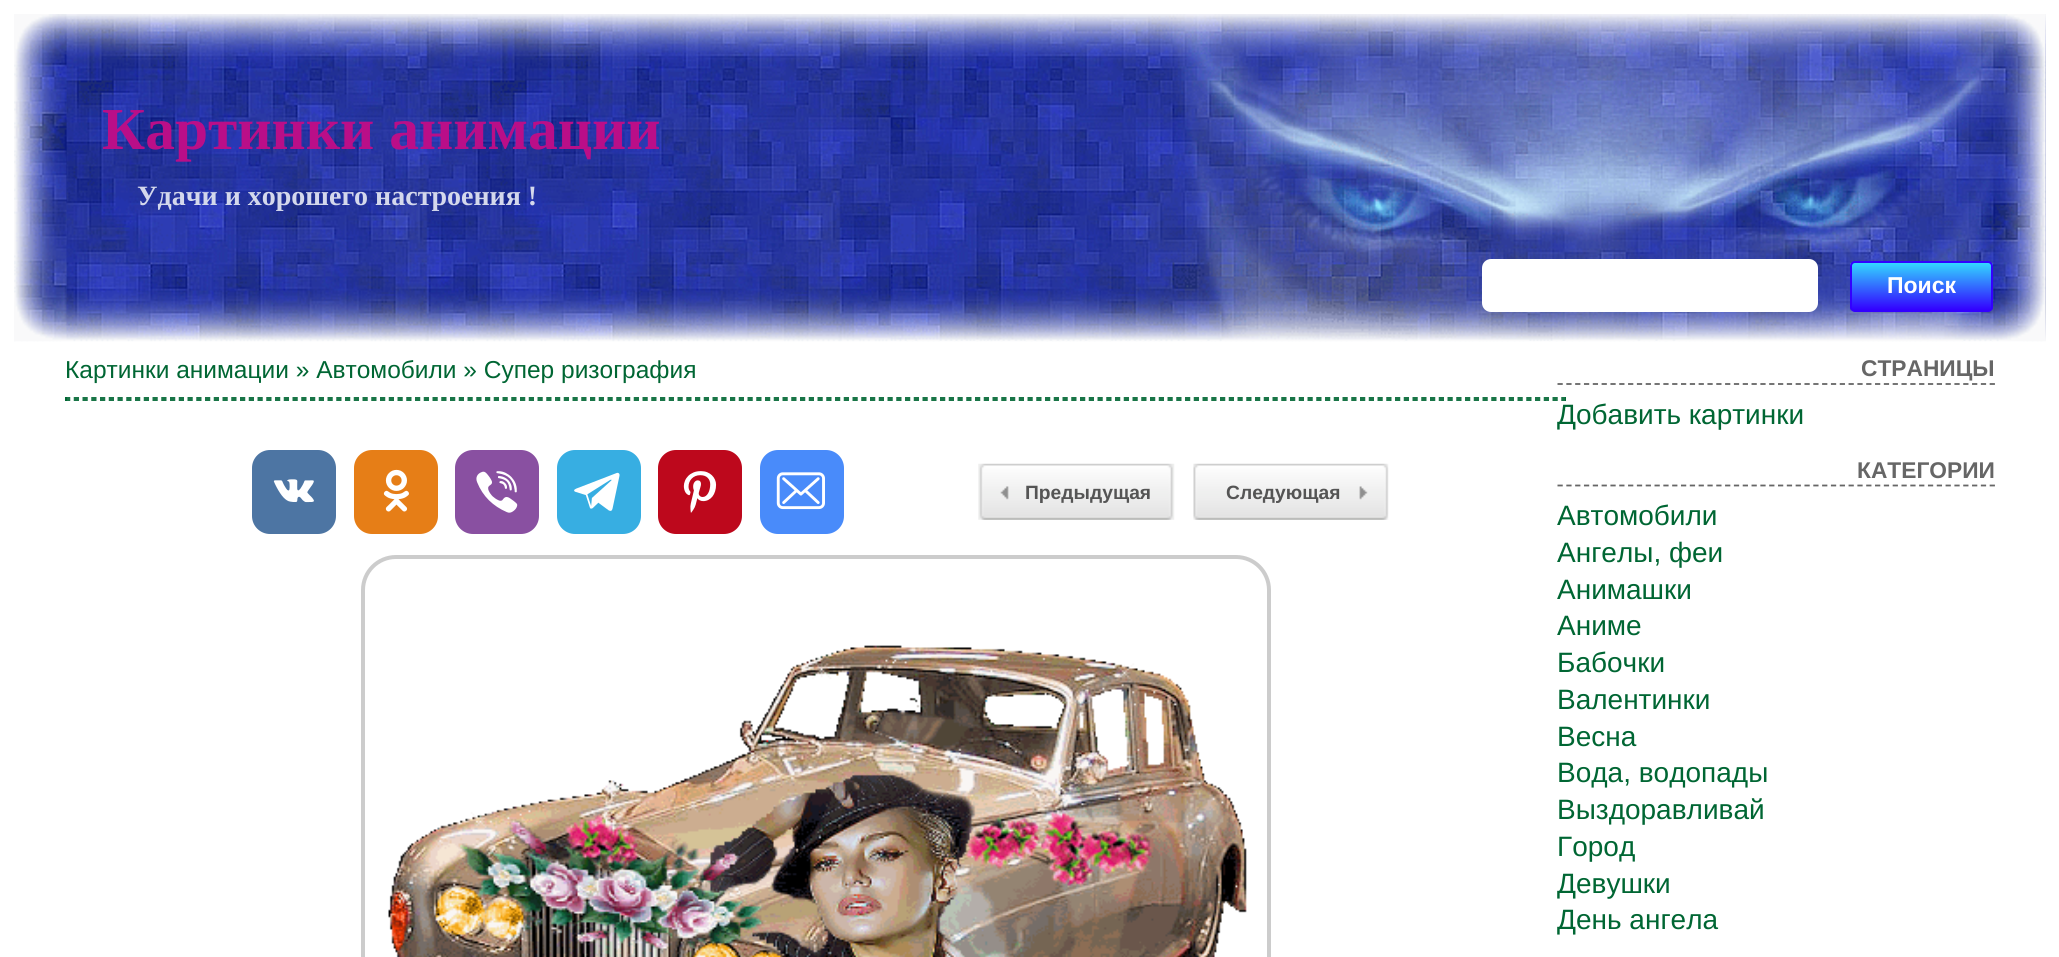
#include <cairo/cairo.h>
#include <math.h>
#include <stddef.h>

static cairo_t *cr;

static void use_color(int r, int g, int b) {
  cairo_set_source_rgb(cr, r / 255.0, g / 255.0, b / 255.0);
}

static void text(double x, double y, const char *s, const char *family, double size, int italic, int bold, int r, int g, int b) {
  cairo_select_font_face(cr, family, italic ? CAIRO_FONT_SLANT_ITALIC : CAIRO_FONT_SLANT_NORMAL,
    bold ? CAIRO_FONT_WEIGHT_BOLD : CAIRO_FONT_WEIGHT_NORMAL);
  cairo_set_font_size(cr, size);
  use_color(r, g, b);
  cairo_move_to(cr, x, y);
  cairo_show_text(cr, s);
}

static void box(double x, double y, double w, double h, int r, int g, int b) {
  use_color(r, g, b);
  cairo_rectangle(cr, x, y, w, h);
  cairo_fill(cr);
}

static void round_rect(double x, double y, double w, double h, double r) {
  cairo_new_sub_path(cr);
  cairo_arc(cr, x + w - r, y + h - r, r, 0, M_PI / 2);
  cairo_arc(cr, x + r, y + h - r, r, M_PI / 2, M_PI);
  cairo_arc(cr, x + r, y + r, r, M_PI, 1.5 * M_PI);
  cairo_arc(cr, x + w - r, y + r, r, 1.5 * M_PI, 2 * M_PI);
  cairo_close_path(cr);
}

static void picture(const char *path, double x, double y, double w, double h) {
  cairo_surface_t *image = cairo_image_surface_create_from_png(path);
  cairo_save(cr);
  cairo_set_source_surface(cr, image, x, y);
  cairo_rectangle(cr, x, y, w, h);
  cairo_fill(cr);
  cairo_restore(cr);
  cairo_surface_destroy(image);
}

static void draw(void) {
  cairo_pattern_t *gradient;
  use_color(255, 255, 255);
  cairo_paint(cr);
  picture("img_01.png", 14, 14, 2032, 328);
  picture("img_02.png", 14, 14, 53, 327);
  picture("img_03.png", 890, 14, 1156, 327);
  use_color(255, 255, 255);
  round_rect(1483, 260, 334, 51, 8);
  cairo_fill_preserve(cr);
  cairo_stroke(cr);
  cairo_save(cr);
  round_rect(1850, 261, 143, 51, 5);
  cairo_clip(cr);
  gradient = cairo_pattern_create_linear(1922, 263, 1922, 310);
  cairo_pattern_add_color_stop_rgba(gradient, 0, 0.2, 0.843, 1, 1);
  cairo_pattern_add_color_stop_rgba(gradient, 1, 0.2, 0, 1, 1);
  cairo_set_source(cr, gradient);
  cairo_pattern_destroy(gradient);
  cairo_rectangle(cr, 1850, 263, 143, 47);
  cairo_fill(cr);
  cairo_restore(cr);
  use_color(51, 215, 255);
  cairo_new_path(cr);
  cairo_move_to(cr, 1855, 264);
  cairo_line_to(cr, 1988, 264);
  cairo_curve_to(cr, 1990, 264, 1992, 266, 1992, 268);
  cairo_line_to(cr, 1992, 267);
  cairo_curve_to(cr, 1992, 265, 1990, 263, 1988, 263);
  cairo_line_to(cr, 1856, 263);
  cairo_curve_to(cr, 1854, 263, 1852, 265, 1852, 267);
  cairo_line_to(cr, 1852, 268);
  cairo_curve_to(cr, 1852, 266, 1853, 264, 1855, 264);
  cairo_close_path(cr);
  cairo_fill(cr);
  round_rect(1851, 262, 141, 49, 4);
  use_color(51, 0, 255);
  cairo_stroke(cr);
  cairo_new_path(cr);
  cairo_move_to(cr, 65, 398);
  cairo_line_to(cr, 1566, 398);
  use_color(0, 102, 51);
  cairo_set_line_width(cr, 1.8);
  cairo_set_dash(cr, (double[]){5.25, 3.5}, 2, 0);
  cairo_stroke(cr);
  box(1565, 397, 1, 4, 0, 102, 51);
  cairo_new_path(cr);
  cairo_move_to(cr, 65, 400);
  cairo_line_to(cr, 1566, 400);
  cairo_stroke(cr);
  box(65, 397, 2, 4, 0, 102, 51);
  use_color(77, 117, 163);
  round_rect(252, 450, 84, 84, 18);
  cairo_fill(cr);
  picture("img_04.png", 273, 479, 41, 24);
  use_color(230, 126, 23);
  round_rect(354, 450, 84, 84, 18);
  cairo_fill(cr);
  picture("img_05.png", 383, 469, 26, 43);
  use_color(137, 80, 161);
  round_rect(455, 450, 84, 84, 18);
  cairo_fill(cr);
  picture("img_06.png", 476, 471, 42, 42);
  use_color(55, 174, 226);
  round_rect(557, 450, 84, 84, 18);
  cairo_fill(cr);
  picture("img_07.png", 574, 472, 46, 39);
  use_color(189, 8, 28);
  round_rect(658, 450, 84, 84, 18);
  cairo_fill(cr);
  picture("img_08.png", 683, 471, 34, 42);
  use_color(73, 139, 250);
  round_rect(760, 450, 84, 84, 18);
  cairo_fill(cr);
  picture("img_09.png", 776, 472, 49, 38);
  picture("img_10.png", 978, 463, 197, 57);
  picture("img_11.png", 1193, 463, 196, 57);
  round_rect(363, 557, 906, 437, 33);
  use_color(204, 204, 204);
  cairo_set_line_width(cr, 4);
  cairo_set_dash(cr, NULL, 0, 0);
  cairo_stroke(cr);
  picture("img_12.png", 388, 645, 859, 312);
  cairo_new_path(cr);
  cairo_move_to(cr, 1557.5, 384);
  cairo_line_to(cr, 1995, 384);
  use_color(102, 102, 102);
  cairo_set_line_width(cr, 1.8);
  cairo_set_dash(cr, (double[]){5.25, 3.57}, 2, 0);
  cairo_stroke(cr);
  cairo_new_path(cr);
  cairo_move_to(cr, 1557.5, 485.5);
  cairo_line_to(cr, 1995, 485.5);
  cairo_stroke(cr);
  text(102, 149, "Картинки анимации", "Liberation Serif", 59.5, 0, 1, 186, 14, 136);
  text(137, 205, "Удачи и хорошего настроения !", "Liberation Serif", 28, 0, 1, 212, 216, 236);
  text(1887, 293, "Поиск", "Liberation Sans", 23, 0, 1, 255, 255, 255);
  text(65, 378, "Картинки анимации » Автомобили » Супер ризография", "Liberation Sans", 24.5, 0, 0, 0, 102, 51);
  text(1025, 499, "Предыдущая", "Liberation Sans", 19.25, 0, 1, 85, 85, 85);
  text(1226, 499, "Следующая", "Liberation Sans", 19.25, 0, 1, 85, 85, 85);
  text(1861, 376, "СТРАНИЦЫ", "Liberation Sans", 22.75, 0, 1, 102, 102, 102);
  text(1557, 424, "Добавить картинки", "Liberation Sans", 28, 0, 0, 0, 102, 51);
  text(1857, 478, "КАТЕГОРИИ", "Liberation Sans", 22.75, 0, 1, 102, 102, 102);
  text(1557, 525, "Автомобили", "Liberation Sans", 28, 0, 0, 0, 102, 51);
  text(1557, 562, "Ангелы, феи", "Liberation Sans", 28, 0, 0, 0, 102, 51);
  text(1557, 599, "Анимашки", "Liberation Sans", 28, 0, 0, 0, 102, 51);
  text(1557, 635, "Аниме", "Liberation Sans", 28, 0, 0, 0, 102, 51);
  text(1557, 672, "Бабочки", "Liberation Sans", 28, 0, 0, 0, 102, 51);
  text(1557, 709, "Валентинки", "Liberation Sans", 28, 0, 0, 0, 102, 51);
  text(1557, 746, "Весна", "Liberation Sans", 28, 0, 0, 0, 102, 51);
  text(1557, 782, "Вода, водопады", "Liberation Sans", 28, 0, 0, 0, 102, 51);
  text(1557, 819, "Выздоравливай", "Liberation Sans", 28, 0, 0, 0, 102, 51);
  text(1557, 856, "Город", "Liberation Sans", 28, 0, 0, 0, 102, 51);
  text(1557, 893, "Девушки", "Liberation Sans", 28, 0, 0, 0, 102, 51);
  text(1557, 929, "День ангела", "Liberation Sans", 28, 0, 0, 0, 102, 51);
}

int main(void) {
  cairo_surface_t *surface = cairo_image_surface_create(CAIRO_FORMAT_RGB24, 2059, 957);
  cr = cairo_create(surface);
  cairo_font_options_t *options = cairo_font_options_create();
  cairo_font_options_set_hint_metrics(options, CAIRO_HINT_METRICS_OFF);
  cairo_font_options_set_hint_style(options, CAIRO_HINT_STYLE_NONE);
  cairo_set_font_options(cr, options);
  cairo_set_miter_limit(cr, 4);
  draw();
  cairo_surface_write_to_png(surface, "out.png");
  cairo_font_options_destroy(options);
  cairo_destroy(cr);
  cairo_surface_destroy(surface);
  return 0;
}
